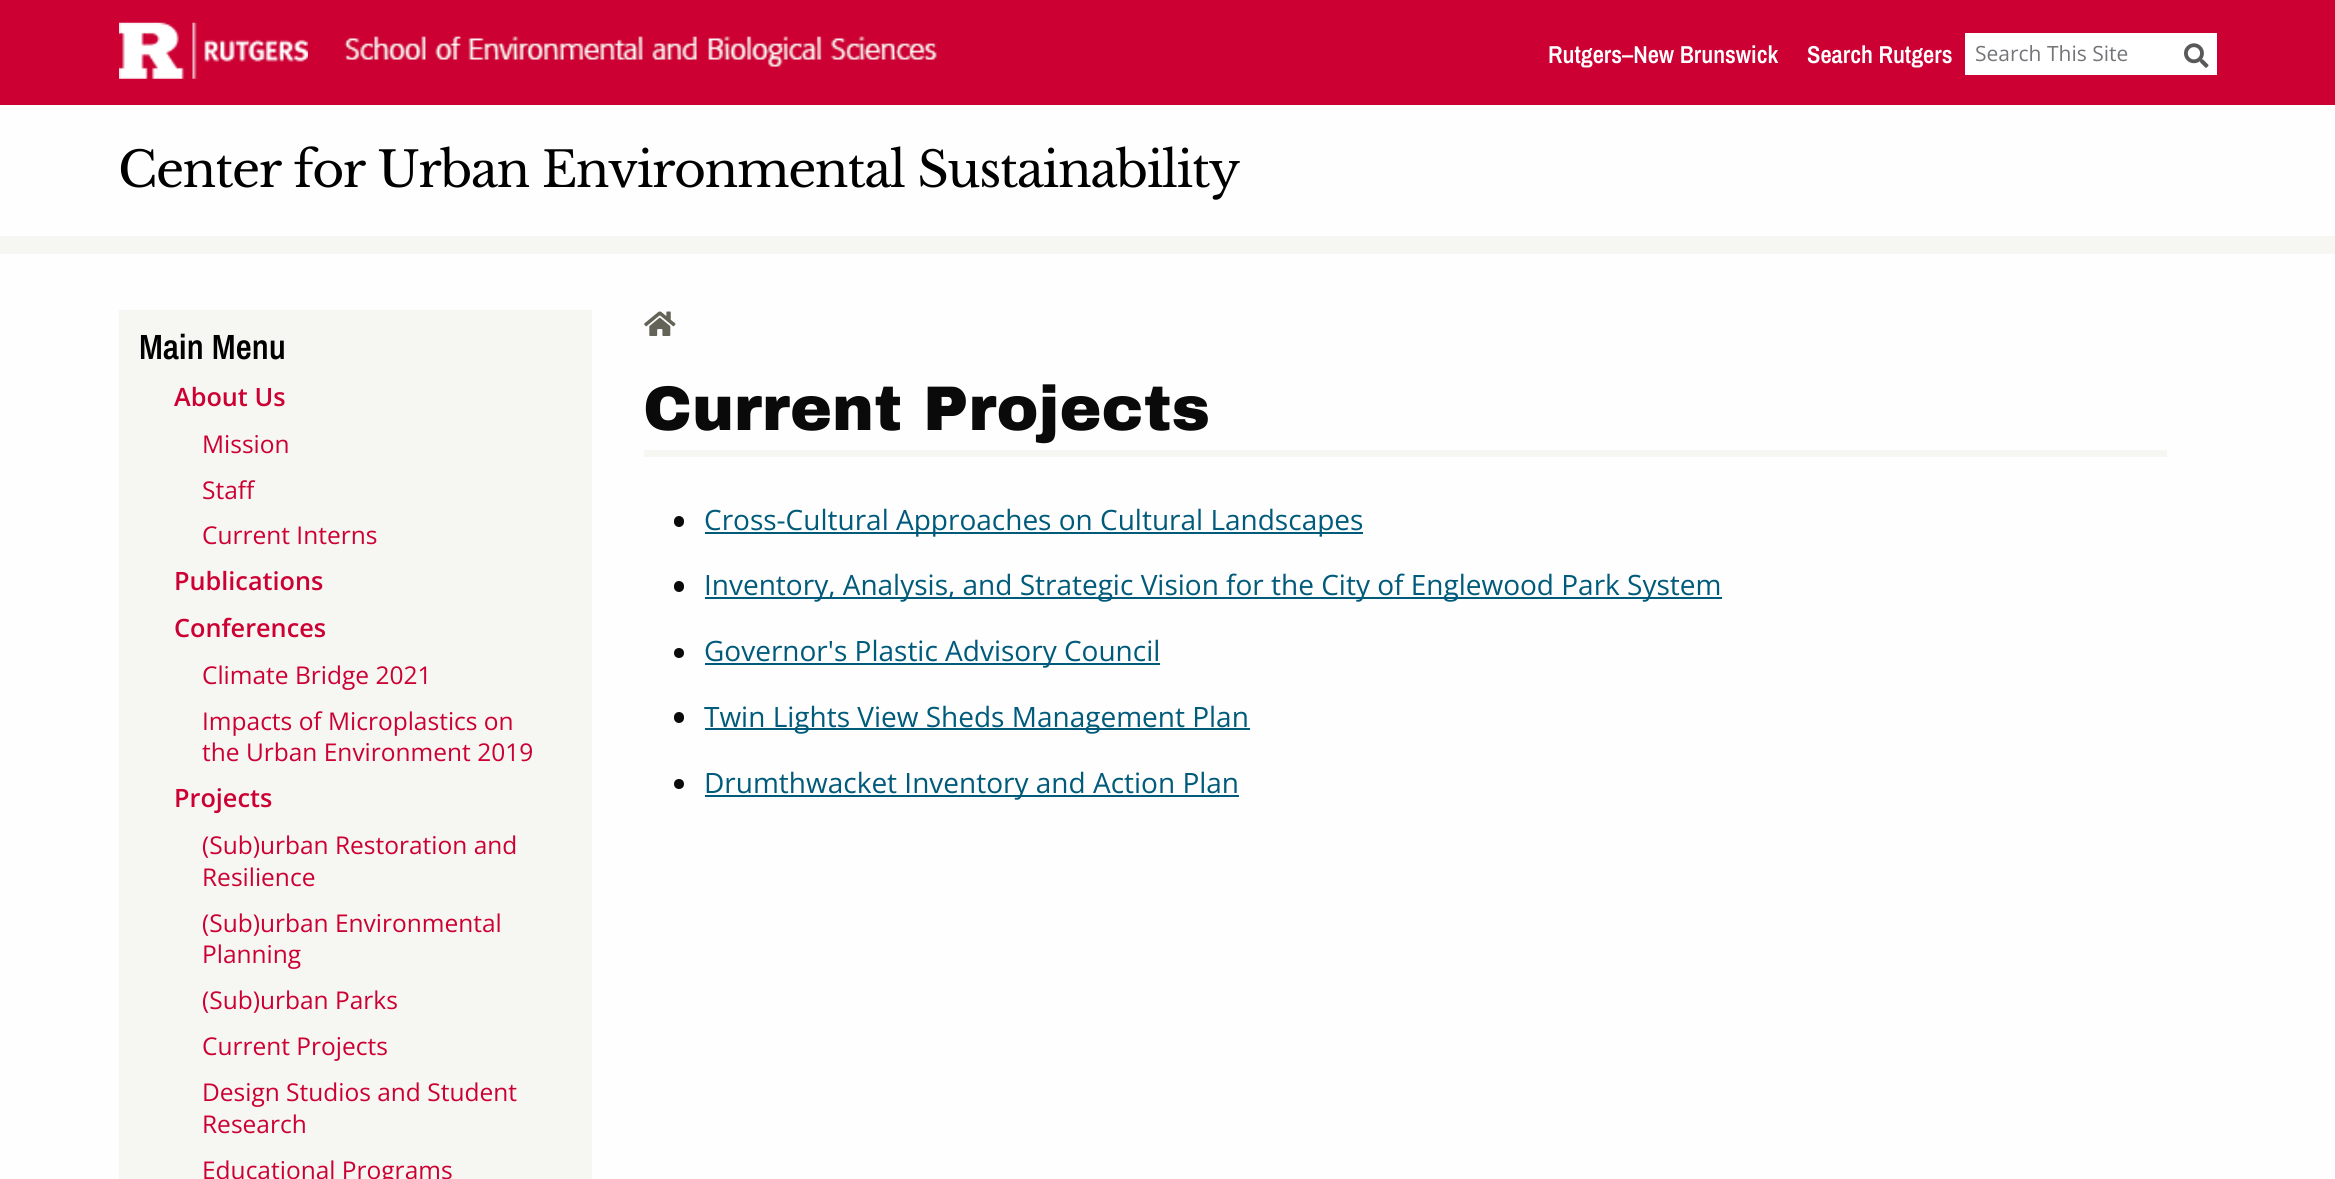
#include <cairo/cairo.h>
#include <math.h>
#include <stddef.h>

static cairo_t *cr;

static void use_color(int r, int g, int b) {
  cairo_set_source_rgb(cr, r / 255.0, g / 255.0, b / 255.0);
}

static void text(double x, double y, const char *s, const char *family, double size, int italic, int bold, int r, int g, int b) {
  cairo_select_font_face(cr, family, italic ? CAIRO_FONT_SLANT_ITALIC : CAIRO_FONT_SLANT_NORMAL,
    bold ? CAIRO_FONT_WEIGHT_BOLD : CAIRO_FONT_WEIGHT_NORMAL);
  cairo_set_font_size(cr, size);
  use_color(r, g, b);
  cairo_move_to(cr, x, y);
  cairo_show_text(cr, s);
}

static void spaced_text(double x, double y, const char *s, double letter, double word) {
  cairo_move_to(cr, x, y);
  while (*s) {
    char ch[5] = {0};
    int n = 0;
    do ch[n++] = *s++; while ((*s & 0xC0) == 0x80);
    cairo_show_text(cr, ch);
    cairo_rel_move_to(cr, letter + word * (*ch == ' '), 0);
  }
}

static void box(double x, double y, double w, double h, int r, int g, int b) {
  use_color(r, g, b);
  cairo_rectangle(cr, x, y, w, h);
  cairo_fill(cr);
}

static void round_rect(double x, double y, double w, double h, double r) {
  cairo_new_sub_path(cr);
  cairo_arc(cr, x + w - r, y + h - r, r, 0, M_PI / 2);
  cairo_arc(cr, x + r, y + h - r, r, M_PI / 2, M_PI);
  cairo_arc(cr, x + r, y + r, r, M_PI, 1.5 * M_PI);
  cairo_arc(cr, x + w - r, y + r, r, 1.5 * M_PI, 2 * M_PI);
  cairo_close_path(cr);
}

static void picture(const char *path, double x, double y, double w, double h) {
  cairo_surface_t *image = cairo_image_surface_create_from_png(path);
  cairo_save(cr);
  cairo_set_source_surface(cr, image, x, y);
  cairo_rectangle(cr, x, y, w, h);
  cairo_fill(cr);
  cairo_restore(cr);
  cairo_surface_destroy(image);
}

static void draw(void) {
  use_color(254, 254, 254);
  cairo_paint(cr);
  box(0, 0, 2335, 105, 204, 0, 51);
  picture("img_01.png", 119, 22, 189, 57);
  picture("img_02.png", 344, 36, 593, 31);
  box(1965, 33, 252, 42, 255, 255, 255);
  picture("img_03.png", 2184, 43, 25, 25);
  box(0, 236, 2335, 18, 246, 247, 242);
  box(119, 310, 473, 869, 246, 247, 242);
  picture("img_04.png", 644, 311, 32, 25);
  box(644, 450, 1523, 7, 246, 247, 242);
  use_color(10, 10, 10);
  round_rect(674, 516, 10, 11, 5);
  cairo_fill(cr);
  box(705, 532, 658, 2, 0, 90, 122);
  use_color(10, 10, 10);
  round_rect(674, 581, 10, 11, 5);
  cairo_fill(cr);
  box(705, 597, 1017, 2, 0, 90, 122);
  use_color(10, 10, 10);
  cairo_arc(cr, 679, 653, 5, 0, 2 * M_PI);
  cairo_fill(cr);
  box(705, 663, 455, 2, 0, 90, 122);
  use_color(10, 10, 10);
  round_rect(674, 712, 10, 11, 5);
  cairo_fill(cr);
  box(705, 728, 545, 2, 0, 90, 122);
  use_color(10, 10, 10);
  cairo_arc(cr, 679, 784, 5, 0, 2 * M_PI);
  cairo_fill(cr);
  box(705, 795, 534, 2, 0, 90, 122);
  text(1548, 63, "Rutgers–New Brunswick", "Archivo Narrow SemiBold", 24.5, 0, 0, 255, 255, 255);
  text(1807, 63, "Search Rutgers", "Archivo Narrow SemiBold", 24.5, 0, 0, 255, 255, 255);
  text(1975, 61, "Search This Site", "Open Sans", 21, 0, 0, 116, 117, 120);
  cairo_select_font_face(cr, "Libre Baskerville", CAIRO_FONT_SLANT_NORMAL, CAIRO_FONT_WEIGHT_NORMAL);
  cairo_set_font_size(cr, 49);
  use_color(0, 0, 0);
  spaced_text(118, 187, "Center for Urban Environmental Sustainability", -1.4, 0);
  text(139, 359, "Main Menu", "Archivo Narrow SemiBold", 35, 0, 0, 0, 0, 0);
  text(174, 406, "About Us", "Open Sans SemiBold", 25.25, 0, 0, 204, 0, 51);
  text(202, 453, "Mission", "Open Sans", 24.5, 0, 0, 204, 0, 51);
  text(202, 499, "Staff", "Open Sans", 24.5, 0, 0, 204, 0, 51);
  text(202, 544, "Current Interns", "Open Sans", 24.5, 0, 0, 204, 0, 51);
  text(174, 590, "Publications", "Open Sans SemiBold", 25.25, 0, 0, 204, 0, 51);
  text(174, 637, "Conferences", "Open Sans SemiBold", 25.25, 0, 0, 204, 0, 51);
  text(202, 684, "Climate Bridge 2021", "Open Sans", 24.5, 0, 0, 204, 0, 51);
  text(202, 730, "Impacts of Microplastics on", "Open Sans", 24.5, 0, 0, 204, 0, 51);
  text(202, 761, "the Urban Environment 2019", "Open Sans", 24.5, 0, 0, 204, 0, 51);
  text(174, 807, "Projects", "Open Sans SemiBold", 25.25, 0, 0, 204, 0, 51);
  text(202, 854, "(Sub)urban Restoration and", "Open Sans", 24.5, 0, 0, 204, 0, 51);
  text(202, 886, "Resilience", "Open Sans", 24.5, 0, 0, 204, 0, 51);
  text(202, 932, "(Sub)urban Environmental", "Open Sans", 24.5, 0, 0, 204, 0, 51);
  text(202, 963, "Planning", "Open Sans", 24.5, 0, 0, 204, 0, 51);
  text(202, 1009, "(Sub)urban Parks", "Open Sans", 24.5, 0, 0, 204, 0, 51);
  text(202, 1055, "Current Projects", "Open Sans", 24.5, 0, 0, 204, 0, 51);
  text(202, 1101, "Design Studios and Student", "Open Sans", 24.5, 0, 0, 204, 0, 51);
  text(202, 1133, "Research", "Open Sans", 24.5, 0, 0, 204, 0, 51);
  text(202, 1179, "Educational Programs", "Open Sans", 24.5, 0, 0, 204, 0, 51);
  text(643, 430, "Current Projects", "Archivo Black", 63, 0, 0, 10, 10, 10);
  text(704, 530, "Cross-Cultural Approaches on Cultural Landscapes", "Open Sans", 28, 0, 0, 0, 90, 122);
  text(704, 595, "Inventory, Analysis, and Strategic Vision for the City of Englewood Park System", "Open Sans", 28, 0, 0, 0, 90, 122);
  text(704, 661, "Governor's Plastic Advisory Council", "Open Sans", 28, 0, 0, 0, 90, 122);
  text(704, 727, "Twin Lights View Sheds Management Plan", "Open Sans", 28, 0, 0, 0, 90, 122);
  text(704, 793, "Drumthwacket Inventory and Action Plan", "Open Sans", 28, 0, 0, 0, 90, 122);
}

int main(void) {
  cairo_surface_t *surface = cairo_image_surface_create(CAIRO_FORMAT_RGB24, 2335, 1179);
  cr = cairo_create(surface);
  cairo_font_options_t *options = cairo_font_options_create();
  cairo_font_options_set_hint_metrics(options, CAIRO_HINT_METRICS_OFF);
  cairo_font_options_set_hint_style(options, CAIRO_HINT_STYLE_NONE);
  cairo_set_font_options(cr, options);
  cairo_set_miter_limit(cr, 4);
  draw();
  cairo_surface_write_to_png(surface, "out.png");
  cairo_font_options_destroy(options);
  cairo_destroy(cr);
  cairo_surface_destroy(surface);
  return 0;
}
